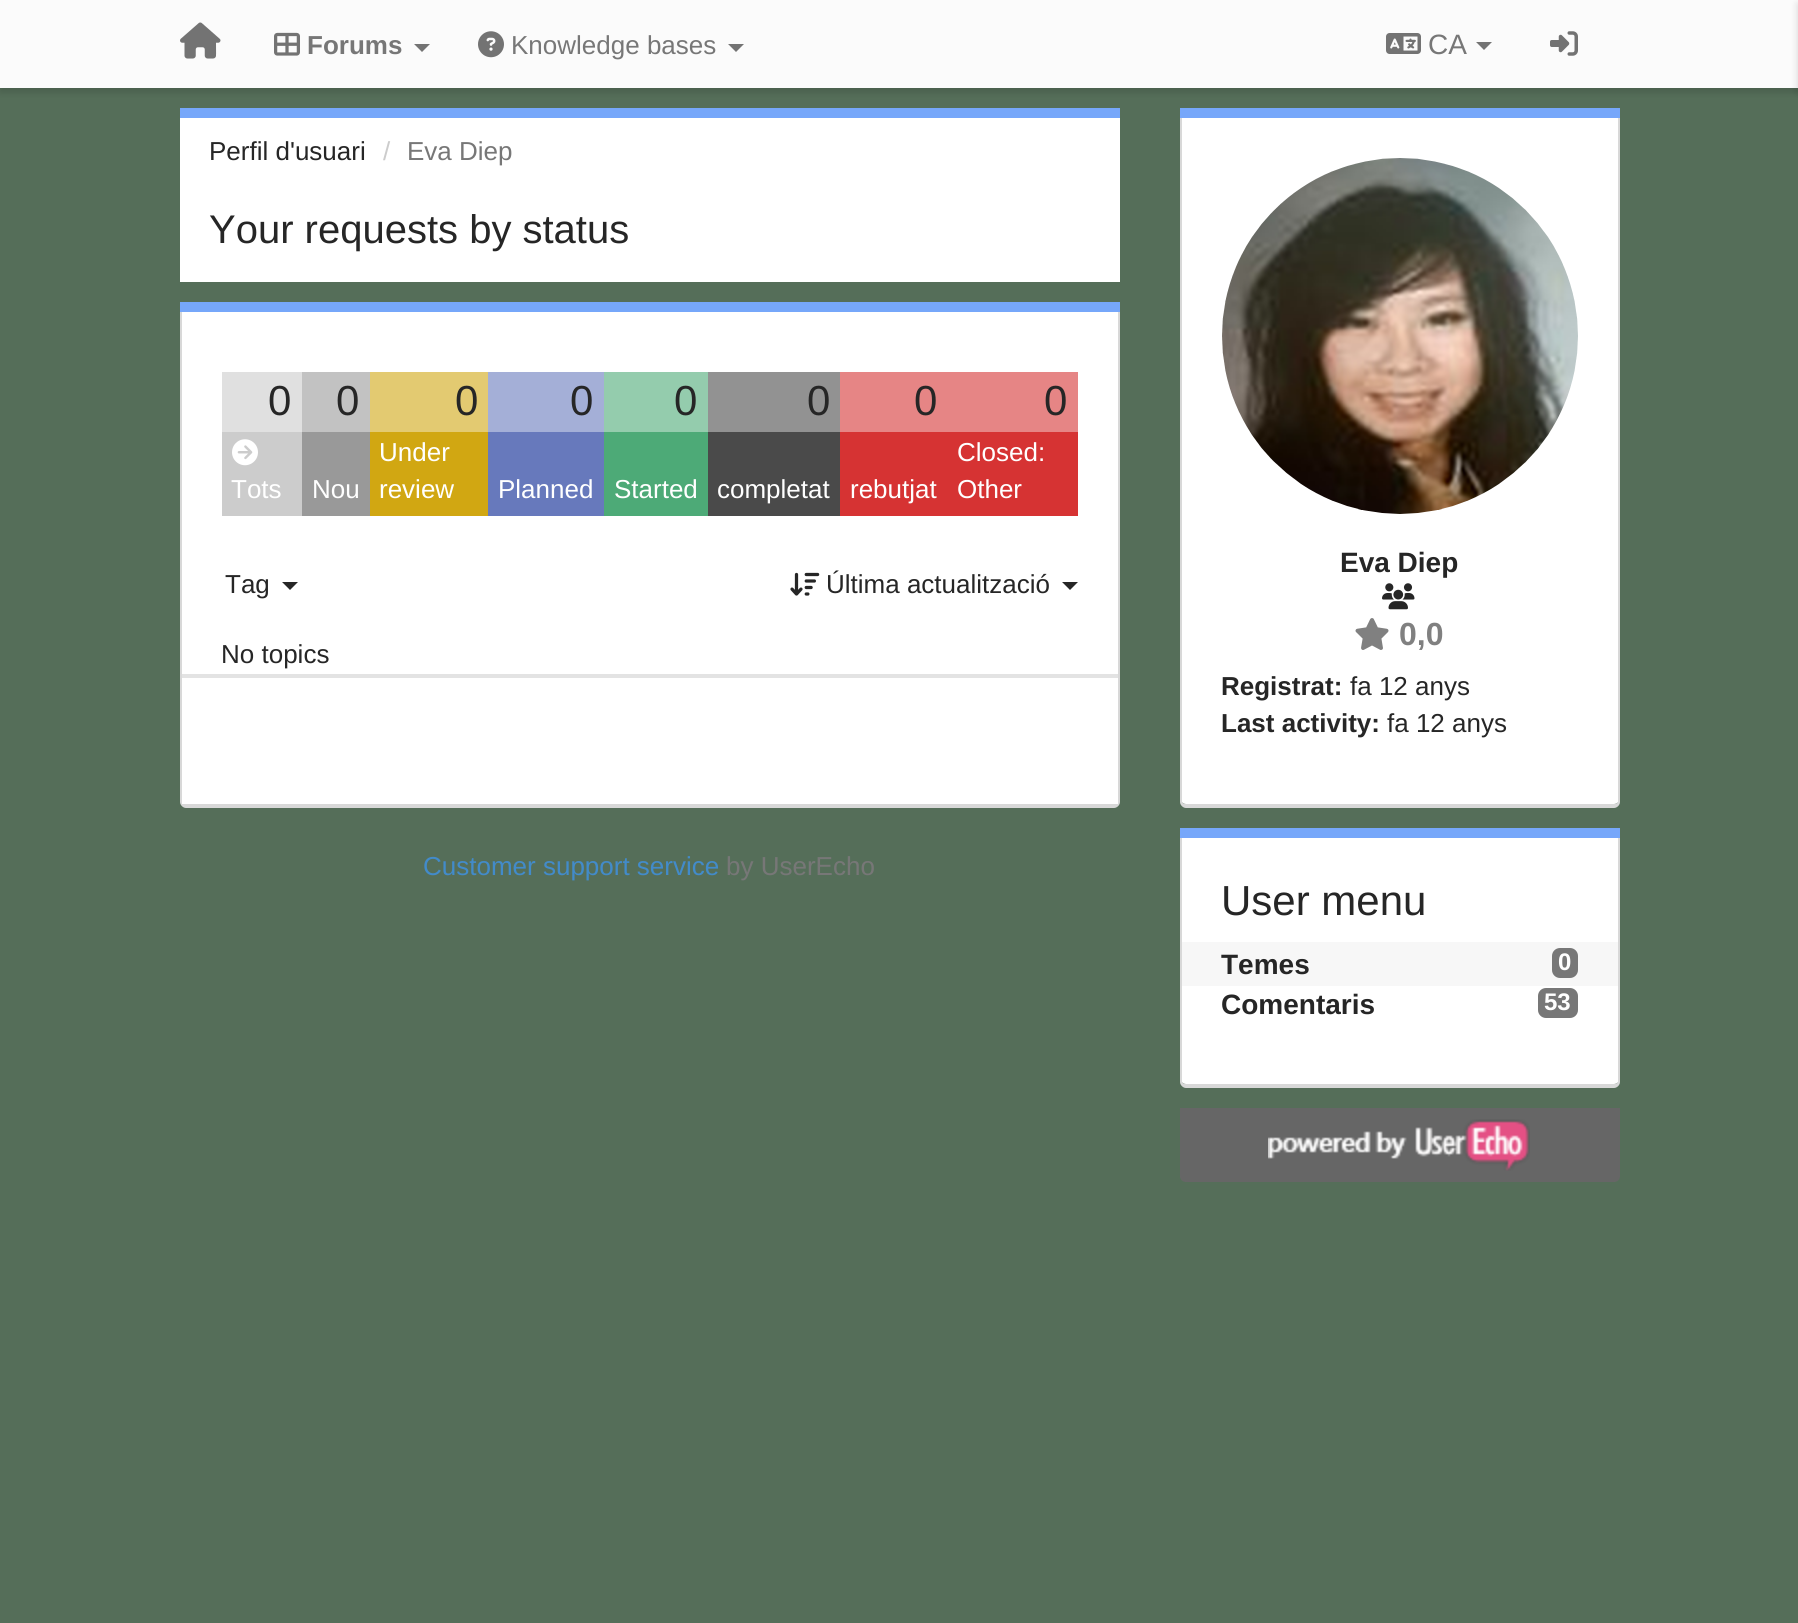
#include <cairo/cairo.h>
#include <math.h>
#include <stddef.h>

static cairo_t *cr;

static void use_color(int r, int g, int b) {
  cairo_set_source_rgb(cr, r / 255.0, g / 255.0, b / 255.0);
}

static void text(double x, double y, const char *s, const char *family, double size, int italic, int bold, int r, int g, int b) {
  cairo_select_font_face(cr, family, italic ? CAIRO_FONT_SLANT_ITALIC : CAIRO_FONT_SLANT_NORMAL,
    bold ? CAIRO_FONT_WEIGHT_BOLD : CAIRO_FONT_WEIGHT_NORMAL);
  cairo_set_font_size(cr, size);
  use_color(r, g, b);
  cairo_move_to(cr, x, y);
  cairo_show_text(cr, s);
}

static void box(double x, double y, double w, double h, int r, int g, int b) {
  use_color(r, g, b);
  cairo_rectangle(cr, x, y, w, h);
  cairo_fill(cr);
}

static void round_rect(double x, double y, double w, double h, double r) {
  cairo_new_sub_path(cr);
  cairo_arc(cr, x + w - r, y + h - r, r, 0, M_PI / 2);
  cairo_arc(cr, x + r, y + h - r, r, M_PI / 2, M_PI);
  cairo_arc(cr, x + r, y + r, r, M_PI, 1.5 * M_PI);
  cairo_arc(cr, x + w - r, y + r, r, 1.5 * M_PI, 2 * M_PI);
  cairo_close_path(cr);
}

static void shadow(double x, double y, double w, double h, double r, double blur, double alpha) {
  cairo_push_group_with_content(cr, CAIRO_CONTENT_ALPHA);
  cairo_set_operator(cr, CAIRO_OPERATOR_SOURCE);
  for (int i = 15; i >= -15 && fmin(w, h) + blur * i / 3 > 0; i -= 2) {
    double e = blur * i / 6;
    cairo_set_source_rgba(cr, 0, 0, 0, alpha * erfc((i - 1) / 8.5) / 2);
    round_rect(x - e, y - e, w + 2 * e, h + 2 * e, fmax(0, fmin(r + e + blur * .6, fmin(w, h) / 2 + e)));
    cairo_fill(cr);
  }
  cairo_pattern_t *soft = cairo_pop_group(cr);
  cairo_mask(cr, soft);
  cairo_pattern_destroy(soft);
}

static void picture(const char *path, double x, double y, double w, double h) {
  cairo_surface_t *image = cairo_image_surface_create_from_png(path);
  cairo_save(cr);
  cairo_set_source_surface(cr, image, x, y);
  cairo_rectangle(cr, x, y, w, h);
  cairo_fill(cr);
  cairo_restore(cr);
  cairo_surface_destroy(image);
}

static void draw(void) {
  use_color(85, 110, 89);
  cairo_paint(cr);
  use_color(0, 0, 0);
  shadow(0, 4, 1798, 88, 0, 4, 0.15);
  box(0, 0, 1798, 88, 251, 251, 251);
  picture("img_01.png", 180, 22, 41, 37);
  picture("img_02.png", 274, 32, 26, 24);
  use_color(115, 115, 115);
  cairo_new_path(cr);
  cairo_move_to(cr, 414, 44);
  cairo_line_to(cr, 430, 44);
  cairo_line_to(cr, 422, 52);
  cairo_close_path(cr);
  cairo_fill(cr);
  picture("img_03.png", 478, 31, 26, 27);
  cairo_new_path(cr);
  cairo_move_to(cr, 728, 44);
  cairo_line_to(cr, 744, 44);
  cairo_line_to(cr, 736, 52);
  cairo_close_path(cr);
  cairo_fill(cr);
  picture("img_04.png", 1386, 33, 35, 21);
  cairo_new_path(cr);
  cairo_move_to(cr, 1476, 42);
  cairo_line_to(cr, 1492, 42);
  cairo_line_to(cr, 1484, 50);
  cairo_close_path(cr);
  cairo_fill(cr);
  picture("img_05.png", 1550, 31, 28, 25);
  use_color(0, 0, 0);
  shadow(1798, 4, 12, 88, 0, 4, 0.15);
  box(180, 118, 940, 164, 255, 255, 255);
  box(180, 108, 940, 10, 118, 167, 250);
  box(180, 302, 940, 10, 118, 167, 250);
  use_color(227, 227, 227);
  cairo_new_path(cr);
  cairo_move_to(cr, 182, 312);
  cairo_line_to(cr, 1118, 312);
  cairo_line_to(cr, 1118, 802);
  cairo_curve_to(cr, 1118, 803, 1116, 804, 1114, 804);
  cairo_line_to(cr, 186, 804);
  cairo_curve_to(cr, 184, 804, 182, 803, 182, 802);
  cairo_close_path(cr);
  cairo_fill(cr);
  use_color(216, 216, 216);
  cairo_set_fill_rule(cr, CAIRO_FILL_RULE_EVEN_ODD);
  cairo_new_path(cr);
  cairo_move_to(cr, 180, 312);
  cairo_line_to(cr, 1120, 312);
  cairo_line_to(cr, 1120, 802);
  cairo_curve_to(cr, 1120, 805, 1117, 808, 1114, 808);
  cairo_line_to(cr, 186, 808);
  cairo_curve_to(cr, 183, 808, 180, 805, 180, 802);
  cairo_close_path(cr);
  cairo_move_to(cr, 182, 312);
  cairo_line_to(cr, 1118, 312);
  cairo_line_to(cr, 1118, 802);
  cairo_curve_to(cr, 1118, 803, 1116, 804, 1114, 804);
  cairo_line_to(cr, 186, 804);
  cairo_curve_to(cr, 184, 804, 182, 803, 182, 802);
  cairo_close_path(cr);
  cairo_fill(cr);
  box(182, 312, 936, 362, 255, 255, 255);
  box(222, 372, 80, 60, 224, 224, 224);
  box(302, 372, 68, 60, 194, 194, 194);
  box(370, 372, 118, 60, 227, 202, 113);
  box(488, 372, 116, 60, 164, 175, 215);
  box(604, 372, 104, 60, 148, 204, 173);
  box(708, 372, 132, 60, 146, 146, 146);
  box(840, 372, 238, 60, 230, 133, 133);
  box(222, 432, 80, 84, 204, 204, 204);
  picture("img_06.png", 232, 439, 26, 27);
  box(302, 432, 68, 84, 153, 153, 153);
  box(370, 432, 118, 84, 209, 167, 18);
  box(488, 432, 116, 84, 103, 121, 188);
  box(604, 432, 104, 84, 77, 170, 119);
  box(708, 432, 132, 84, 74, 74, 74);
  box(840, 432, 238, 84, 214, 51, 51);
  use_color(38, 38, 38);
  cairo_set_fill_rule(cr, CAIRO_FILL_RULE_WINDING);
  cairo_new_path(cr);
  cairo_move_to(cr, 282, 582);
  cairo_line_to(cr, 298, 582);
  cairo_line_to(cr, 290, 590);
  cairo_close_path(cr);
  cairo_fill(cr);
  picture("img_07.png", 790, 572, 30, 24);
  cairo_new_path(cr);
  cairo_move_to(cr, 1062, 582);
  cairo_line_to(cr, 1078, 582);
  cairo_line_to(cr, 1070, 590);
  cairo_close_path(cr);
  cairo_fill(cr);
  box(182, 678, 936, 126, 255, 255, 255);
  box(1180, 108, 440, 10, 118, 167, 250);
  use_color(255, 255, 255);
  cairo_new_path(cr);
  cairo_move_to(cr, 1182, 118);
  cairo_line_to(cr, 1618, 118);
  cairo_line_to(cr, 1618, 802);
  cairo_curve_to(cr, 1618, 803, 1616, 804, 1614, 804);
  cairo_line_to(cr, 1186, 804);
  cairo_curve_to(cr, 1184, 804, 1182, 803, 1182, 802);
  cairo_close_path(cr);
  cairo_fill(cr);
  use_color(216, 216, 216);
  cairo_set_fill_rule(cr, CAIRO_FILL_RULE_EVEN_ODD);
  cairo_new_path(cr);
  cairo_move_to(cr, 1180, 118);
  cairo_line_to(cr, 1620, 118);
  cairo_line_to(cr, 1620, 802);
  cairo_curve_to(cr, 1620, 805, 1617, 808, 1614, 808);
  cairo_line_to(cr, 1186, 808);
  cairo_curve_to(cr, 1183, 808, 1180, 805, 1180, 802);
  cairo_close_path(cr);
  cairo_move_to(cr, 1182, 118);
  cairo_line_to(cr, 1618, 118);
  cairo_line_to(cr, 1618, 802);
  cairo_curve_to(cr, 1618, 803, 1616, 804, 1614, 804);
  cairo_line_to(cr, 1186, 804);
  cairo_curve_to(cr, 1184, 804, 1182, 803, 1182, 802);
  cairo_close_path(cr);
  cairo_fill(cr);
  picture("img_08.png", 1222, 158, 356, 356);
  picture("img_09.png", 1382, 583, 33, 27);
  picture("img_10.png", 1355, 618, 34, 32);
  box(1180, 828, 440, 10, 118, 167, 250);
  use_color(255, 255, 255);
  cairo_set_fill_rule(cr, CAIRO_FILL_RULE_WINDING);
  cairo_new_path(cr);
  cairo_move_to(cr, 1182, 838);
  cairo_line_to(cr, 1618, 838);
  cairo_line_to(cr, 1618, 1082);
  cairo_curve_to(cr, 1618, 1083, 1616, 1084, 1614, 1084);
  cairo_line_to(cr, 1186, 1084);
  cairo_curve_to(cr, 1184, 1084, 1182, 1083, 1182, 1082);
  cairo_close_path(cr);
  cairo_fill(cr);
  use_color(216, 216, 216);
  cairo_set_fill_rule(cr, CAIRO_FILL_RULE_EVEN_ODD);
  cairo_new_path(cr);
  cairo_move_to(cr, 1180, 838);
  cairo_line_to(cr, 1620, 838);
  cairo_line_to(cr, 1620, 1082);
  cairo_curve_to(cr, 1620, 1085, 1617, 1088, 1614, 1088);
  cairo_line_to(cr, 1186, 1088);
  cairo_curve_to(cr, 1183, 1088, 1180, 1085, 1180, 1082);
  cairo_close_path(cr);
  cairo_move_to(cr, 1182, 838);
  cairo_line_to(cr, 1618, 838);
  cairo_line_to(cr, 1618, 1082);
  cairo_curve_to(cr, 1618, 1083, 1616, 1084, 1614, 1084);
  cairo_line_to(cr, 1186, 1084);
  cairo_curve_to(cr, 1184, 1084, 1182, 1083, 1182, 1082);
  cairo_close_path(cr);
  cairo_fill(cr);
  box(1182, 942, 436, 44, 247, 247, 247);
  use_color(119, 119, 119);
  round_rect(1552, 948, 26, 30, 8);
  cairo_fill(cr);
  round_rect(1538, 988, 40, 30, 8);
  cairo_fill(cr);
  use_color(102, 102, 102);
  cairo_new_path(cr);
  cairo_move_to(cr, 1180, 1108);
  cairo_line_to(cr, 1620, 1108);
  cairo_line_to(cr, 1620, 1176);
  cairo_curve_to(cr, 1620, 1179.5, 1617.5, 1182, 1614, 1182);
  cairo_line_to(cr, 1186, 1182);
  cairo_curve_to(cr, 1182.5, 1182, 1180, 1179.5, 1180, 1176);
  cairo_close_path(cr);
  cairo_fill(cr);
  picture("img_11.png", 1268, 1119, 262, 52);
  text(307, 54, "Forums", "Liberation Sans", 26, 0, 1, 119, 119, 119);
  text(511, 54, "Knowledge bases", "Liberation Sans", 26, 0, 0, 119, 119, 119);
  text(1428, 54, "CA", "Liberation Sans", 28, 0, 0, 119, 119, 119);
  text(209, 160, "Perfil d'usuari", "Liberation Sans", 26, 0, 0, 38, 38, 38);
  text(383, 160, "/", "Liberation Sans", 26, 0, 0, 204, 204, 204);
  text(407, 160, "Eva Diep", "Liberation Sans", 26, 0, 0, 119, 119, 119);
  text(209, 243, "Your requests by status", "Liberation Sans", 40, 0, 0, 38, 38, 38);
  text(268, 415, "0", "Liberation Sans", 42, 0, 0, 38, 38, 38);
  text(336, 415, "0", "Liberation Sans", 42, 0, 0, 38, 38, 38);
  text(455, 415, "0", "Liberation Sans", 42, 0, 0, 38, 38, 38);
  text(570, 415, "0", "Liberation Sans", 42, 0, 0, 38, 38, 38);
  text(674, 415, "0", "Liberation Sans", 42, 0, 0, 38, 38, 38);
  text(807, 415, "0", "Liberation Sans", 42, 0, 0, 38, 38, 38);
  text(914, 415, "0", "Liberation Sans", 42, 0, 0, 38, 38, 38);
  text(1044, 415, "0", "Liberation Sans", 42, 0, 0, 38, 38, 38);
  text(231, 498, "Tots", "Liberation Sans", 26, 0, 0, 255, 255, 255);
  text(312, 498, "Nou", "Liberation Sans", 26, 0, 0, 255, 255, 255);
  text(379, 461, "Under", "Liberation Sans", 26, 0, 0, 255, 255, 255);
  text(379, 498, "review", "Liberation Sans", 26, 0, 0, 255, 255, 255);
  text(498, 498, "Planned", "Liberation Sans", 26, 0, 0, 255, 255, 255);
  text(614, 498, "Started", "Liberation Sans", 26, 0, 0, 255, 255, 255);
  text(717, 498, "completat", "Liberation Sans", 26, 0, 0, 255, 255, 255);
  text(850, 498, "rebutjat", "Liberation Sans", 26, 0, 0, 255, 255, 255);
  text(957, 461, "Closed:", "Liberation Sans", 26, 0, 0, 255, 255, 255);
  text(957, 498, "Other", "Liberation Sans", 26, 0, 0, 255, 255, 255);
  text(225, 593, "Tag", "Liberation Sans", 26, 0, 0, 38, 38, 38);
  text(826, 593, "Última actualització", "Liberation Sans", 26, 0, 0, 38, 38, 38);
  text(221, 663, "No topics", "Liberation Sans", 26, 0, 0, 38, 38, 38);
  text(423, 875, "Customer support service", "Liberation Sans", 26, 0, 0, 66, 139, 202);
  text(726, 875, "by UserEcho", "Liberation Sans", 26, 0, 0, 119, 119, 119);
  text(1340, 572, "Eva Diep", "Liberation Sans", 28, 0, 1, 38, 38, 38);
  text(1399, 645, "0,0", "Liberation Sans", 32, 0, 1, 128, 128, 128);
  text(1221, 695, "Registrat:", "Liberation Sans", 26, 0, 1, 38, 38, 38);
  text(1350, 695, "fa 12 anys", "Liberation Sans", 26, 0, 0, 38, 38, 38);
  text(1221, 732, "Last activity:", "Liberation Sans", 26, 0, 1, 38, 38, 38);
  text(1387, 732, "fa 12 anys", "Liberation Sans", 26, 0, 0, 38, 38, 38);
  text(1221, 915, "User menu", "Liberation Sans", 42, 0, 0, 38, 38, 38);
  text(1221, 974, "Temes", "Liberation Sans", 28, 0, 1, 38, 38, 38);
  text(1558, 970, "0", "Liberation Sans", 24, 0, 1, 255, 255, 255);
  text(1221, 1014, "Comentaris", "Liberation Sans", 28, 0, 1, 38, 38, 38);
  text(1544, 1010, "53", "Liberation Sans", 24, 0, 1, 255, 255, 255);
}

int main(void) {
  cairo_surface_t *surface = cairo_image_surface_create(CAIRO_FORMAT_RGB24, 1798, 1623);
  cr = cairo_create(surface);
  cairo_font_options_t *options = cairo_font_options_create();
  cairo_font_options_set_hint_metrics(options, CAIRO_HINT_METRICS_OFF);
  cairo_font_options_set_hint_style(options, CAIRO_HINT_STYLE_NONE);
  cairo_set_font_options(cr, options);
  cairo_set_miter_limit(cr, 4);
  draw();
  cairo_surface_write_to_png(surface, "out.png");
  cairo_font_options_destroy(options);
  cairo_destroy(cr);
  cairo_surface_destroy(surface);
  return 0;
}
